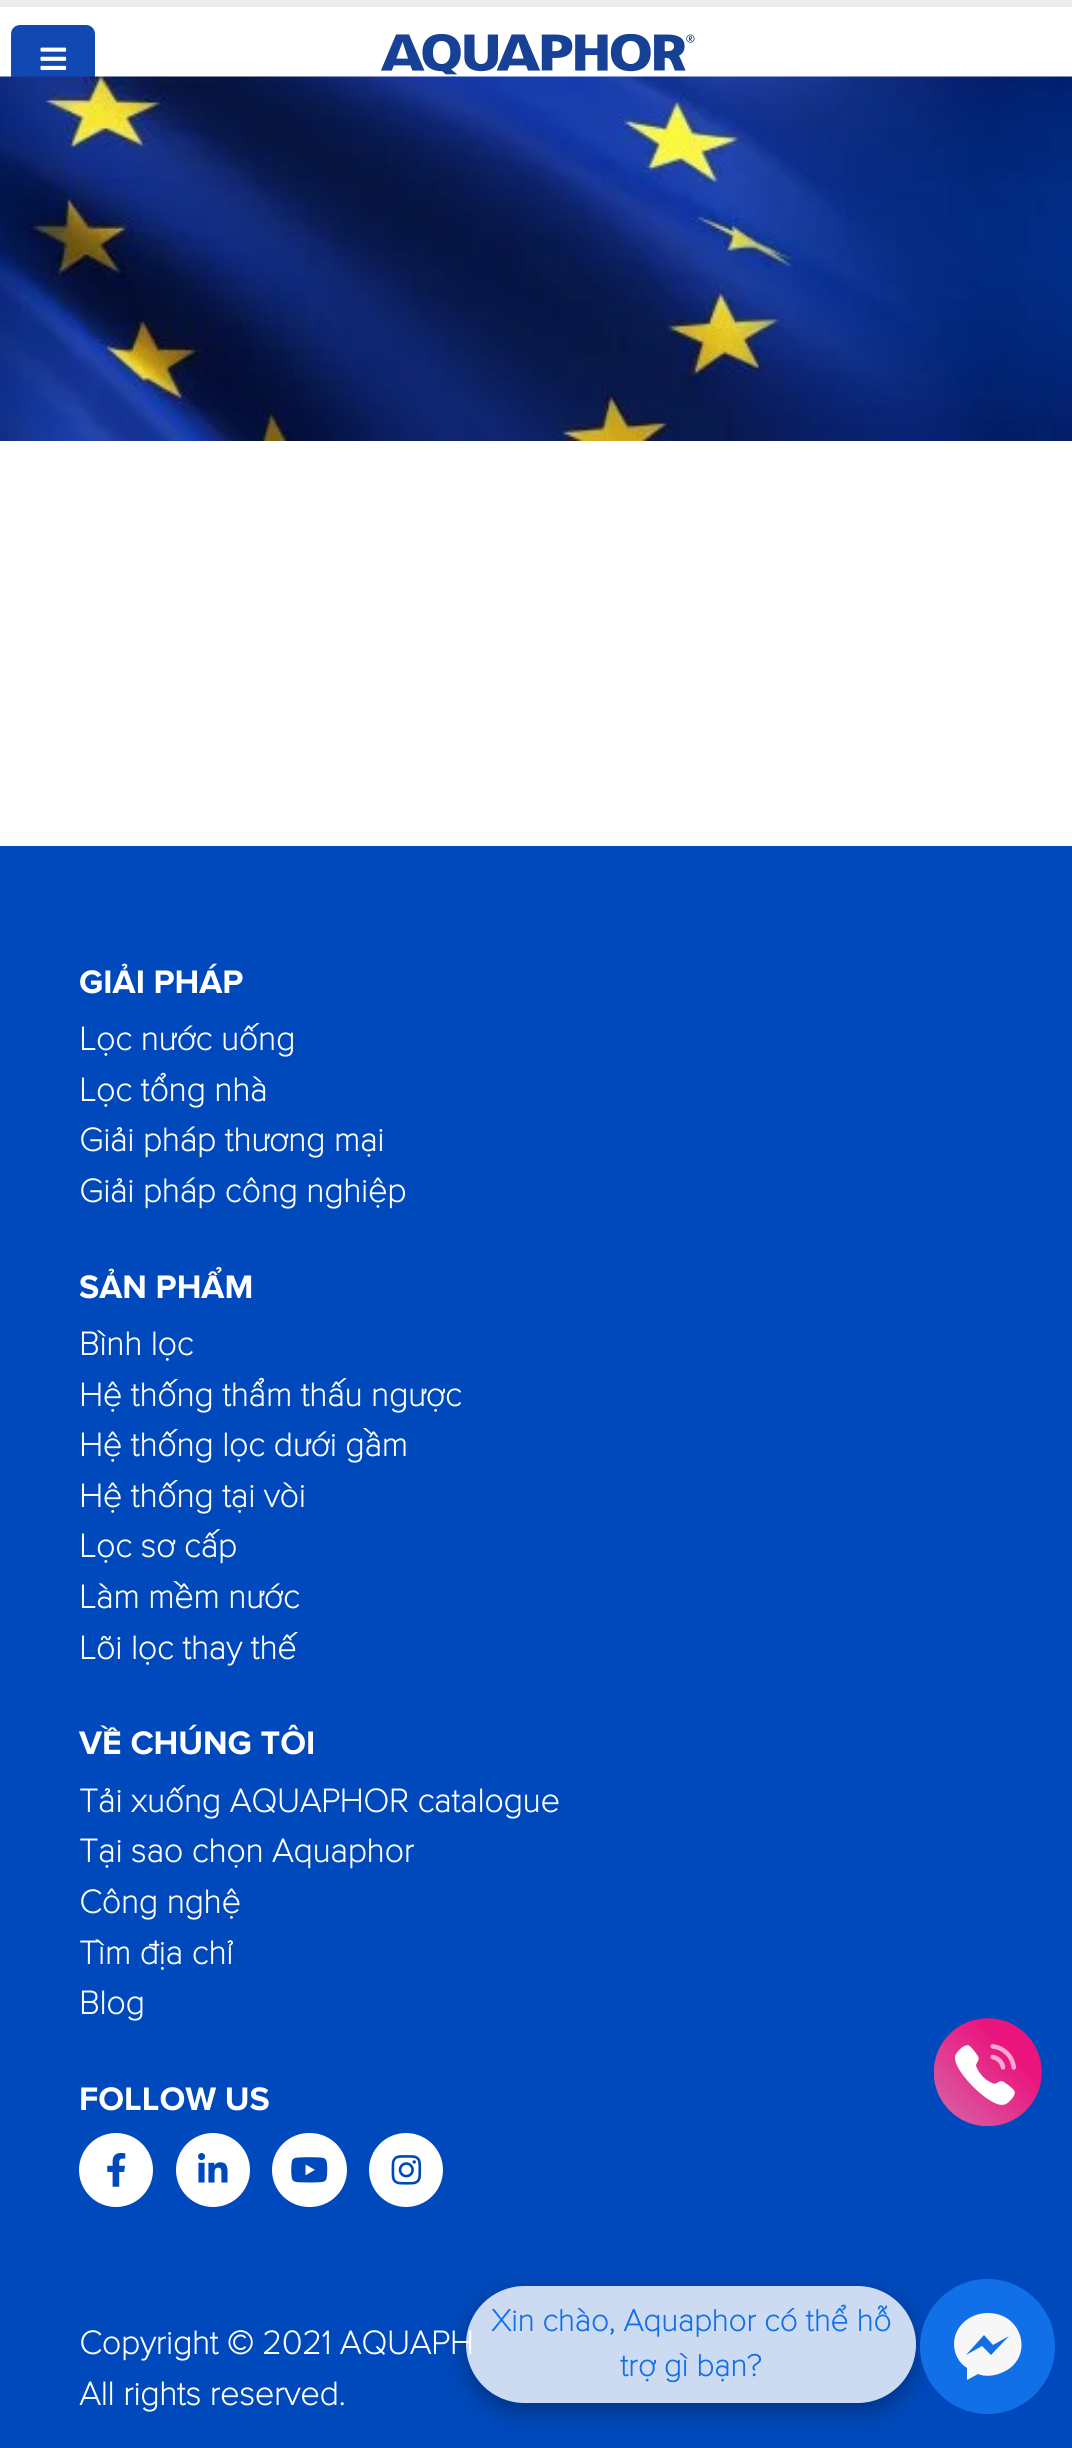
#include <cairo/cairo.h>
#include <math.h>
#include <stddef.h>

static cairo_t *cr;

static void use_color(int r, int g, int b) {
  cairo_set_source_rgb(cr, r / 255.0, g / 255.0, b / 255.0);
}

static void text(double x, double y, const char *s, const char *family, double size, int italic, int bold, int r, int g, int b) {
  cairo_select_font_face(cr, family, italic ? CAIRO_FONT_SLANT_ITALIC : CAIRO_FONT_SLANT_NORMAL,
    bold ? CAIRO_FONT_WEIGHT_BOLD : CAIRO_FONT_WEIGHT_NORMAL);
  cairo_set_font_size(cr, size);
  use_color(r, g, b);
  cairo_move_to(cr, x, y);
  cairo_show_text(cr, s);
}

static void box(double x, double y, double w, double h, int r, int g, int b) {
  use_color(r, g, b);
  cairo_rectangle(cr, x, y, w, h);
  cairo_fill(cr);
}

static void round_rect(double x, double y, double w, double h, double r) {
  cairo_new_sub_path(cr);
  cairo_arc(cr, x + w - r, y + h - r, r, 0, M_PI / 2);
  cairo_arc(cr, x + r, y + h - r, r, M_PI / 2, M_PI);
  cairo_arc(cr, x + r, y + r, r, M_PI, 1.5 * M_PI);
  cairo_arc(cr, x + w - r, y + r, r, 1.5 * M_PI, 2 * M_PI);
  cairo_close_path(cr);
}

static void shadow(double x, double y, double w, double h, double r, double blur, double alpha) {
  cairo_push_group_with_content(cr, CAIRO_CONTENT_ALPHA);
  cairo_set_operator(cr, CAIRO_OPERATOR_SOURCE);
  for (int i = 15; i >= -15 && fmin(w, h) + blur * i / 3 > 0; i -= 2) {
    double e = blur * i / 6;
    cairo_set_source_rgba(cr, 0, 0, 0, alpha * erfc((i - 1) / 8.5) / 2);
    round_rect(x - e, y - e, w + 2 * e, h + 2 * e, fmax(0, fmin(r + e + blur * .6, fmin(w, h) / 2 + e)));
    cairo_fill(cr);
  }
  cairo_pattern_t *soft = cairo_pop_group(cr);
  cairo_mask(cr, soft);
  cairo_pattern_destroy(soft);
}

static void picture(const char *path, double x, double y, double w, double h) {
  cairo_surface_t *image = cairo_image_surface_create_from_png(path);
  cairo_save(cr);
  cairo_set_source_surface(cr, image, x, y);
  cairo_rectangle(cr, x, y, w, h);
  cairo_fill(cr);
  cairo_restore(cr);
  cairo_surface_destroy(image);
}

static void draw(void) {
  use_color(255, 255, 255);
  cairo_paint(cr);
  box(0, 0, 1072, 7, 237, 237, 237);
  use_color(18, 72, 178);
  round_rect(11, 25, 84, 76, 9);
  cairo_fill(cr);
  picture("img_01.png", 40, 47, 27, 23);
  picture("img_02.png", 381, 34, 314, 41);
  picture("img_03.png", 0, 76, 1072, 365);
  box(0, 846, 1072, 1602, 0, 73, 188);
  use_color(255, 255, 255);
  cairo_arc(cr, 116, 2170, 37, 0, 2 * M_PI);
  cairo_fill(cr);
  picture("img_04.png", 107, 2153, 19, 34);
  cairo_arc(cr, 213, 2170, 37, 0, 2 * M_PI);
  cairo_fill(cr);
  picture("img_05.png", 198, 2153, 30, 30);
  round_rect(272, 2133, 75, 74, 37);
  cairo_fill(cr);
  picture("img_06.png", 291, 2157, 37, 26);
  cairo_arc(cr, 406, 2170, 37, 0, 2 * M_PI);
  cairo_fill(cr);
  picture("img_07.png", 391, 2155, 31, 30);
  cairo_save(cr);
  cairo_set_fill_rule(cr, CAIRO_FILL_RULE_EVEN_ODD);
  cairo_new_path(cr);
  cairo_move_to(cr, 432, 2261);
  cairo_line_to(cr, 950, 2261);
  cairo_line_to(cr, 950, 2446);
  cairo_line_to(cr, 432, 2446);
  cairo_close_path(cr);
  cairo_move_to(cr, 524.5, 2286);
  cairo_line_to(cr, 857.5, 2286);
  cairo_curve_to(cr, 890, 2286, 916, 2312, 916, 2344.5);
  cairo_curve_to(cr, 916, 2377, 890, 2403, 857.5, 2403);
  cairo_line_to(cr, 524.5, 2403);
  cairo_curve_to(cr, 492, 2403, 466, 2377, 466, 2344.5);
  cairo_curve_to(cr, 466, 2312, 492, 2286, 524.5, 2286);
  cairo_close_path(cr);
  cairo_clip(cr);
  use_color(0, 0, 0);
  shadow(466, 2295, 450, 117, 58.5, 11, 0.3);
  cairo_restore(cr);
  picture("img_08.png", 934, 2018, 108, 108);
  use_color(17, 111, 232);
  cairo_arc(cr, 987.5, 2346.5, 67.5, 0, 2 * M_PI);
  cairo_fill(cr);
  use_color(247, 247, 247);
  cairo_new_path(cr);
  cairo_move_to(cr, 988, 2313);
  cairo_curve_to(cr, 969, 2313, 954, 2327, 954, 2344);
  cairo_curve_to(cr, 954, 2354, 959, 2363, 967, 2368);
  cairo_line_to(cr, 967, 2380);
  cairo_line_to(cr, 978, 2374);
  cairo_curve_to(cr, 985, 2377, 994, 2376, 1001, 2373);
  cairo_curve_to(cr, 1035, 2360, 1024, 2313, 988, 2313);
  cairo_close_path(cr);
  cairo_move_to(cr, 991, 2355);
  cairo_line_to(cr, 982, 2346);
  cairo_line_to(cr, 966, 2355);
  cairo_line_to(cr, 984, 2335);
  cairo_line_to(cr, 993, 2345);
  cairo_line_to(cr, 1009, 2336);
  cairo_close_path(cr);
  cairo_fill(cr);
  text(79, 993, "GIẢI PHÁP", "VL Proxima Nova", 33.75, 0, 1, 255, 255, 255);
  text(79, 1050, "Lọc nước uống", "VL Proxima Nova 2", 33.75, 0, 1, 255, 255, 255);
  text(79, 1101, "Lọc tổng nhà", "VL Proxima Nova 2", 33.75, 0, 1, 255, 255, 255);
  text(79, 1151, "Giải pháp thương mại", "VL Proxima Nova 2", 33.75, 0, 1, 255, 255, 255);
  text(79, 1202, "Giải pháp công nghiệp", "VL Proxima Nova 2", 33.75, 0, 1, 255, 255, 255);
  text(79, 1298, "SẢN PHẨM", "VL Proxima Nova", 33.75, 0, 1, 255, 255, 255);
  text(79, 1355, "Bình lọc", "VL Proxima Nova 2", 33.75, 0, 1, 255, 255, 255);
  text(79, 1406, "Hệ thống thẩm thấu ngược", "VL Proxima Nova 2", 33.75, 0, 1, 255, 255, 255);
  text(79, 1456, "Hệ thống lọc dưới gầm", "VL Proxima Nova 2", 33.75, 0, 1, 255, 255, 255);
  text(79, 1507, "Hệ thống tại vòi", "VL Proxima Nova 2", 33.75, 0, 1, 255, 255, 255);
  text(79, 1557, "Lọc sơ cấp", "VL Proxima Nova 2", 33.75, 0, 1, 255, 255, 255);
  text(79, 1608, "Làm mềm nước", "VL Proxima Nova 2", 33.75, 0, 1, 255, 255, 255);
  text(79, 1659, "Lõi lọc thay thế", "VL Proxima Nova 2", 33.75, 0, 1, 255, 255, 255);
  text(79, 1754, "VỀ CHÚNG TÔI", "VL Proxima Nova", 33.75, 0, 1, 255, 255, 255);
  text(79, 1812, "Tải xuống AQUAPHOR catalogue", "VL Proxima Nova 2", 33.75, 0, 1, 255, 255, 255);
  text(79, 1862, "Tại sao chọn Aquaphor", "VL Proxima Nova 2", 33.75, 0, 1, 255, 255, 255);
  text(79, 1913, "Công nghệ", "VL Proxima Nova 2", 33.75, 0, 1, 255, 255, 255);
  text(79, 1964, "Tìm địa chỉ", "VL Proxima Nova 2", 33.75, 0, 1, 255, 255, 255);
  text(79, 2014, "Blog", "VL Proxima Nova 2", 33.75, 0, 1, 255, 255, 255);
  text(79, 2110, "FOLLOW US", "VL Proxima Nova", 33.75, 0, 1, 255, 255, 255);
  text(79, 2354, "Copyright © 2021 AQUAPH", "VL Proxima Nova 2", 33.75, 0, 1, 255, 255, 255);
  text(79, 2405, "All rights reserved.", "VL Proxima Nova 2", 33.75, 0, 1, 255, 255, 255);
  cairo_set_source_rgba(cr, 1, 1, 1, 0.8);
  round_rect(466, 2286, 450, 117, 58.5);
  cairo_fill(cr);
  text(491, 2331, "Xin chào, Aquaphor có thể hỗ", "VL Proxima Nova 2", 31.5, 0, 1, 17, 111, 232);
  text(620, 2376, "trợ gì bạn?", "VL Proxima Nova 2", 31.5, 0, 1, 17, 111, 232);
}

int main(void) {
  cairo_surface_t *surface = cairo_image_surface_create(CAIRO_FORMAT_RGB24, 1072, 2448);
  cr = cairo_create(surface);
  cairo_font_options_t *options = cairo_font_options_create();
  cairo_font_options_set_hint_metrics(options, CAIRO_HINT_METRICS_OFF);
  cairo_font_options_set_hint_style(options, CAIRO_HINT_STYLE_NONE);
  cairo_set_font_options(cr, options);
  cairo_set_miter_limit(cr, 4);
  draw();
  cairo_surface_write_to_png(surface, "out.png");
  cairo_font_options_destroy(options);
  cairo_destroy(cr);
  cairo_surface_destroy(surface);
  return 0;
}
